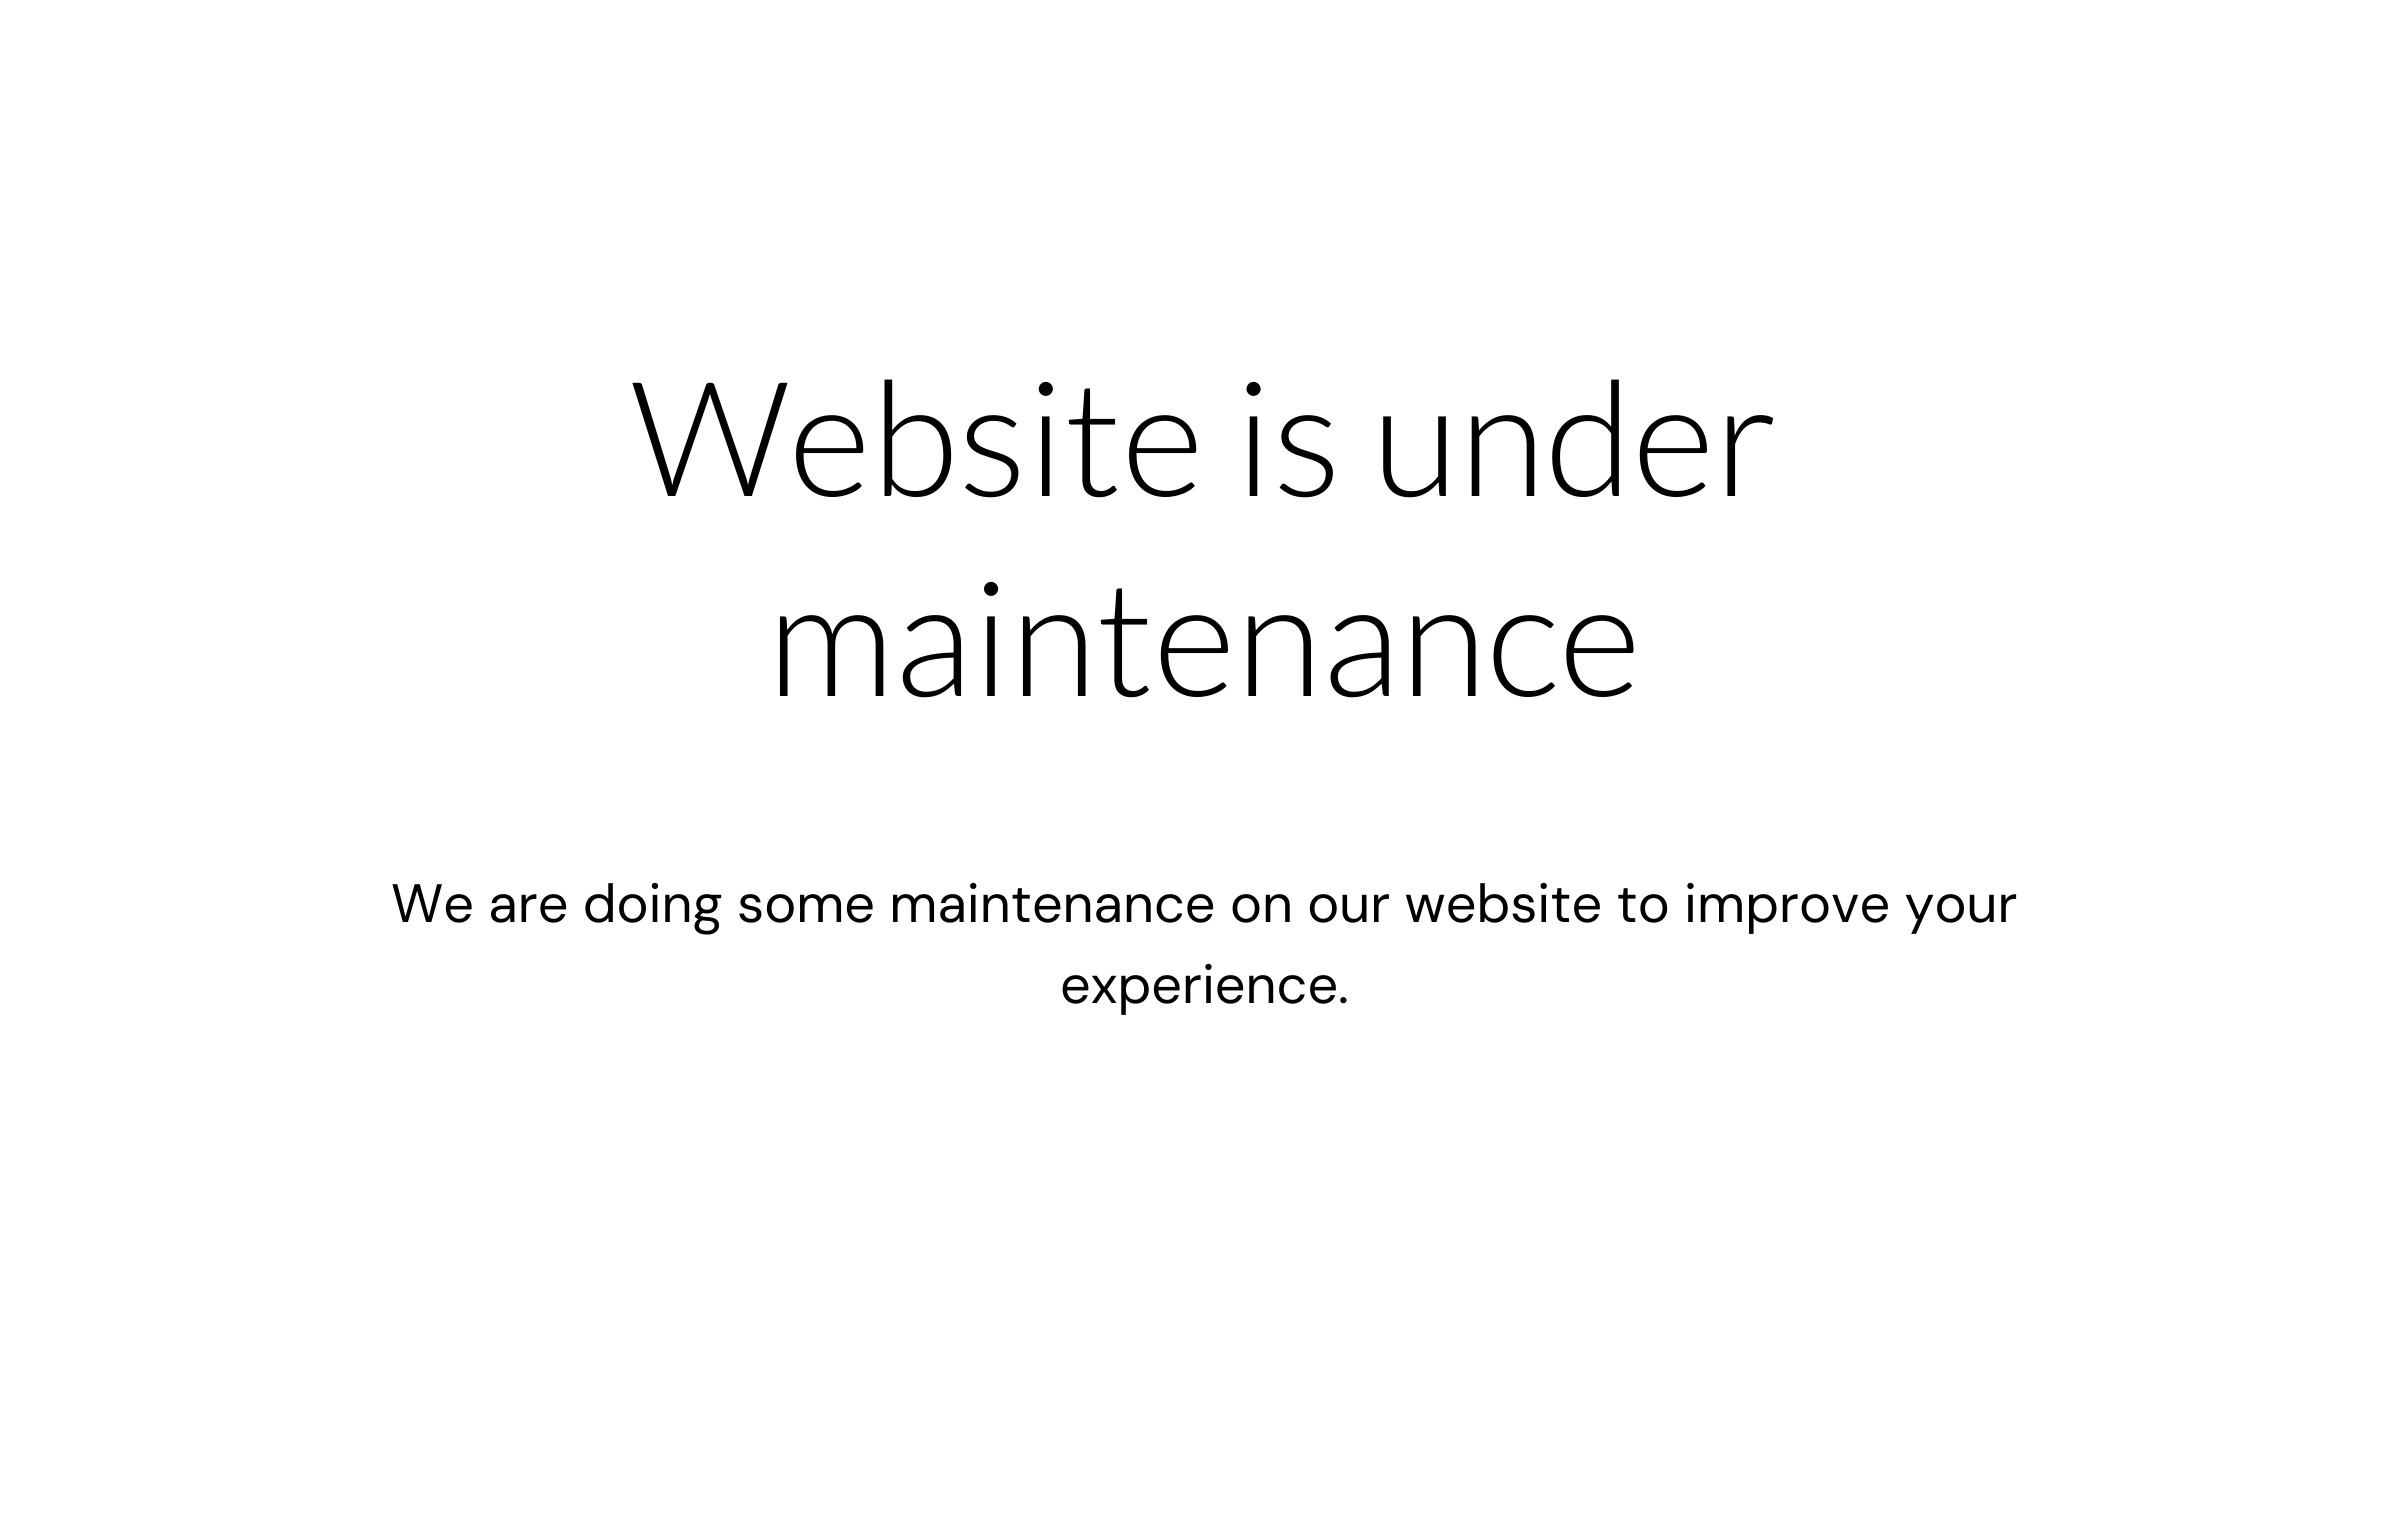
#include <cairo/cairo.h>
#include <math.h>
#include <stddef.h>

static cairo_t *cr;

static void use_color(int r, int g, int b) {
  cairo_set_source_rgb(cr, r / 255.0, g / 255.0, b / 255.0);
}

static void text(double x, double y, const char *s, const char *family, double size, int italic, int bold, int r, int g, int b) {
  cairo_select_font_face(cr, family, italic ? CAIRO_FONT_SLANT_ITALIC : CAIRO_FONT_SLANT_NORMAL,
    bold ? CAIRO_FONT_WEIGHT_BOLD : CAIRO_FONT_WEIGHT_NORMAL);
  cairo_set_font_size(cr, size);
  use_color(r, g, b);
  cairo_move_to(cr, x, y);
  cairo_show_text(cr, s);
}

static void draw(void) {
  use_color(255, 255, 255);
  cairo_paint(cr);
  text(631, 496, "Website is under", "Lato Light", 160, 0, 0, 0, 0, 0);
  text(767, 696, "maintenance", "Lato Light", 160, 0, 0, 0, 0, 0);
  text(391, 922, "We are doing some maintenance on our website to improve your", "DM Sans", 54, 0, 0, 0, 0, 0);
  text(1060, 1003, "experience.", "DM Sans", 54, 0, 0, 0, 0, 0);
}

int main(void) {
  cairo_surface_t *surface = cairo_image_surface_create(CAIRO_FORMAT_RGB24, 2407, 1533);
  cr = cairo_create(surface);
  cairo_font_options_t *options = cairo_font_options_create();
  cairo_font_options_set_hint_metrics(options, CAIRO_HINT_METRICS_OFF);
  cairo_font_options_set_hint_style(options, CAIRO_HINT_STYLE_NONE);
  cairo_set_font_options(cr, options);
  cairo_set_miter_limit(cr, 4);
  draw();
  cairo_surface_write_to_png(surface, "out.png");
  cairo_font_options_destroy(options);
  cairo_destroy(cr);
  cairo_surface_destroy(surface);
  return 0;
}
